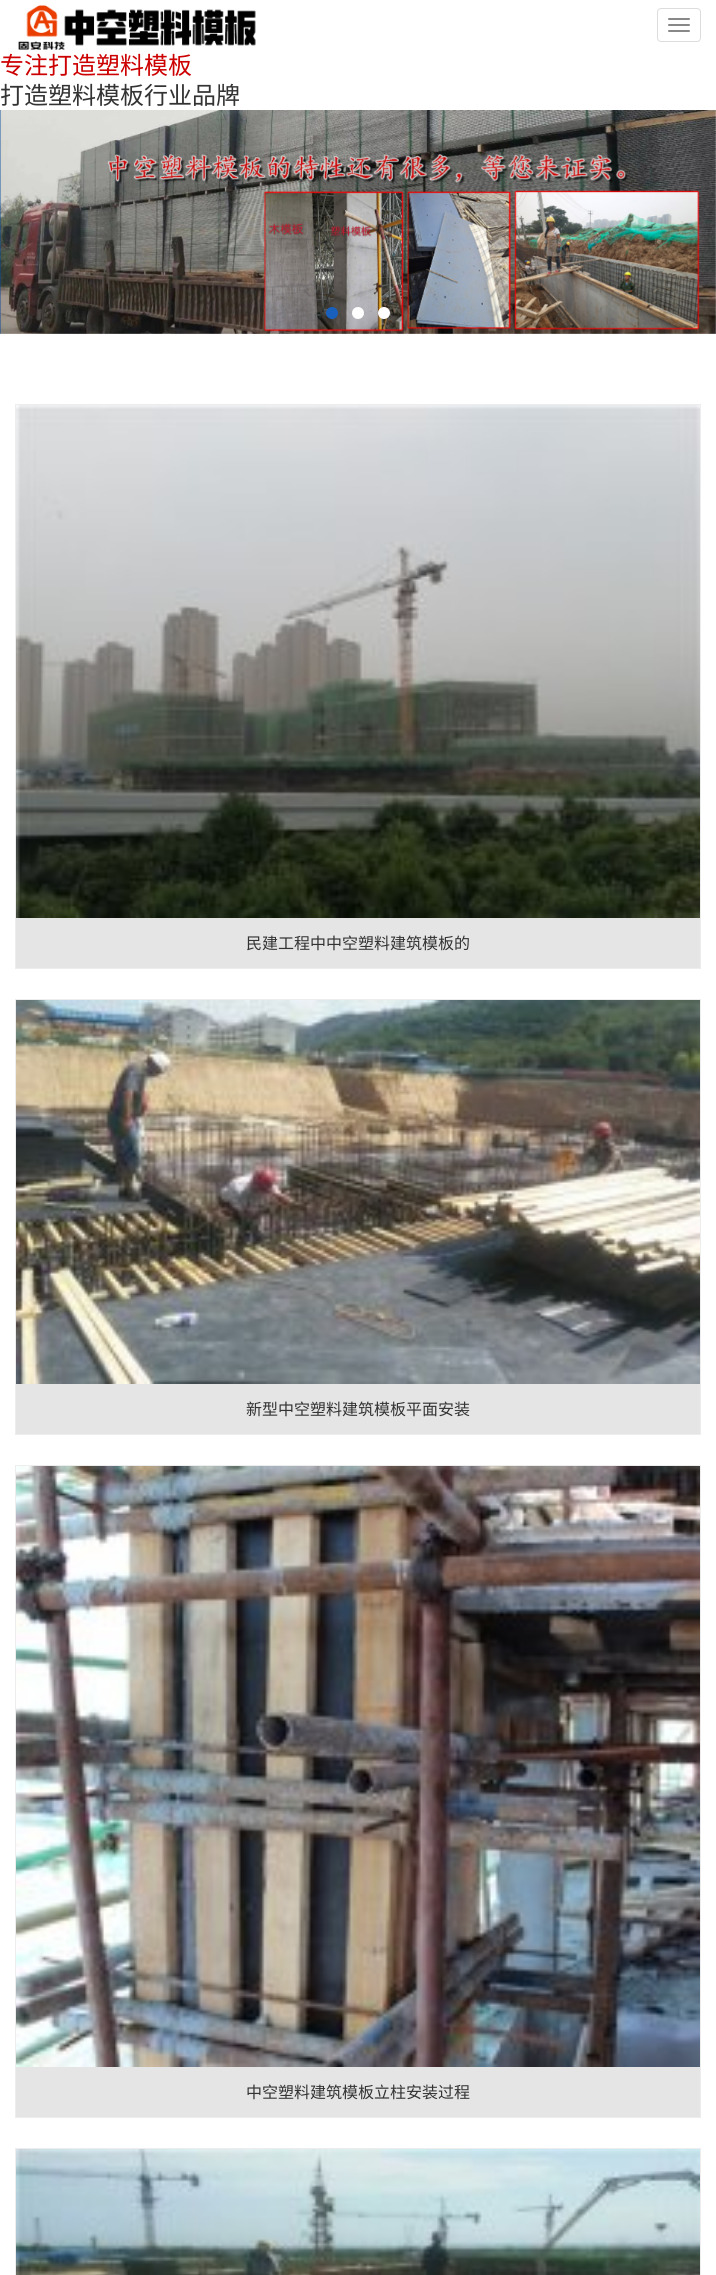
#include <cairo/cairo.h>
#include <math.h>
#include <stddef.h>

static cairo_t *cr;

static void use_color(int r, int g, int b) {
  cairo_set_source_rgb(cr, r / 255.0, g / 255.0, b / 255.0);
}

static void text(double x, double y, const char *s, const char *family, double size, int italic, int bold, int r, int g, int b) {
  cairo_select_font_face(cr, family, italic ? CAIRO_FONT_SLANT_ITALIC : CAIRO_FONT_SLANT_NORMAL,
    bold ? CAIRO_FONT_WEIGHT_BOLD : CAIRO_FONT_WEIGHT_NORMAL);
  cairo_set_font_size(cr, size);
  use_color(r, g, b);
  cairo_move_to(cr, x, y);
  cairo_show_text(cr, s);
}

static void box(double x, double y, double w, double h, int r, int g, int b) {
  use_color(r, g, b);
  cairo_rectangle(cr, x, y, w, h);
  cairo_fill(cr);
}

static void round_rect(double x, double y, double w, double h, double r) {
  cairo_new_sub_path(cr);
  cairo_arc(cr, x + w - r, y + h - r, r, 0, M_PI / 2);
  cairo_arc(cr, x + r, y + h - r, r, M_PI / 2, M_PI);
  cairo_arc(cr, x + r, y + r, r, M_PI, 1.5 * M_PI);
  cairo_arc(cr, x + w - r, y + r, r, 1.5 * M_PI, 2 * M_PI);
  cairo_close_path(cr);
}

static void picture(const char *path, double x, double y, double w, double h) {
  cairo_surface_t *image = cairo_image_surface_create_from_png(path);
  cairo_save(cr);
  cairo_set_source_surface(cr, image, x, y);
  cairo_rectangle(cr, x, y, w, h);
  cairo_fill(cr);
  cairo_restore(cr);
  cairo_surface_destroy(image);
}

static void draw(void) {
  use_color(255, 255, 255);
  cairo_paint(cr);
  picture("img_01.png", 18, 5, 238, 45);
  round_rect(657.5, 8.5, 43, 33, 3.5);
  use_color(221, 221, 221);
  cairo_set_line_width(cr, 1);
  cairo_stroke(cr);
  use_color(136, 136, 136);
  round_rect(668, 18, 22, 2, 1);
  cairo_fill(cr);
  round_rect(668, 24, 22, 2, 1);
  cairo_fill(cr);
  round_rect(668, 30, 22, 2, 1);
  cairo_fill(cr);
  picture("img_02.png", 0, 110, 716, 224);
  use_color(25, 95, 188);
  cairo_arc(cr, 332, 313, 6, 0, 2 * M_PI);
  cairo_fill(cr);
  use_color(255, 255, 255);
  cairo_arc(cr, 358, 313, 6, 0, 2 * M_PI);
  cairo_fill(cr);
  cairo_arc(cr, 384, 313, 6, 0, 2 * M_PI);
  cairo_fill(cr);
  cairo_rectangle(cr, 15.5, 404.5, 685, 564);
  use_color(237, 237, 237);
  cairo_stroke(cr);
  picture("img_03.png", 16, 405, 684, 513);
  box(16, 918, 684, 50, 229, 229, 229);
  cairo_rectangle(cr, 15.5, 999.5, 685, 435);
  use_color(237, 237, 237);
  cairo_stroke(cr);
  picture("img_04.png", 16, 1000, 684, 384);
  box(16, 1384, 684, 50, 229, 229, 229);
  cairo_rectangle(cr, 15.5, 1465.5, 685, 652);
  use_color(237, 237, 237);
  cairo_stroke(cr);
  picture("img_05.png", 16, 1466, 684, 601);
  box(16, 2067, 684, 50, 229, 229, 229);
  cairo_rectangle(cr, 15.5, 2148.5, 685, 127);
  use_color(237, 237, 237);
  cairo_stroke(cr);
  picture("img_06.png", 16, 2149, 684, 126);
  text(0, 74, "专注打造塑料模板", "Noto Sans CJK SC", 24, 0, 0, 204, 0, 0);
  text(0, 104, "打造塑料模板行业品牌", "Noto Sans CJK SC", 24, 0, 0, 51, 51, 51);
  text(246, 949, "民建工程中中空塑料建筑模板的", "Noto Sans CJK SC", 16, 0, 0, 51, 51, 51);
  text(246, 1415, "新型中空塑料建筑模板平面安装", "Noto Sans CJK SC", 16, 0, 0, 51, 51, 51);
  text(246, 2098, "中空塑料建筑模板立柱安装过程", "Noto Sans CJK SC", 16, 0, 0, 51, 51, 51);
}

int main(void) {
  cairo_surface_t *surface = cairo_image_surface_create(CAIRO_FORMAT_RGB24, 716, 2275);
  cr = cairo_create(surface);
  cairo_font_options_t *options = cairo_font_options_create();
  cairo_font_options_set_hint_metrics(options, CAIRO_HINT_METRICS_OFF);
  cairo_font_options_set_hint_style(options, CAIRO_HINT_STYLE_NONE);
  cairo_set_font_options(cr, options);
  cairo_set_miter_limit(cr, 4);
  draw();
  cairo_surface_write_to_png(surface, "out.png");
  cairo_font_options_destroy(options);
  cairo_destroy(cr);
  cairo_surface_destroy(surface);
  return 0;
}
